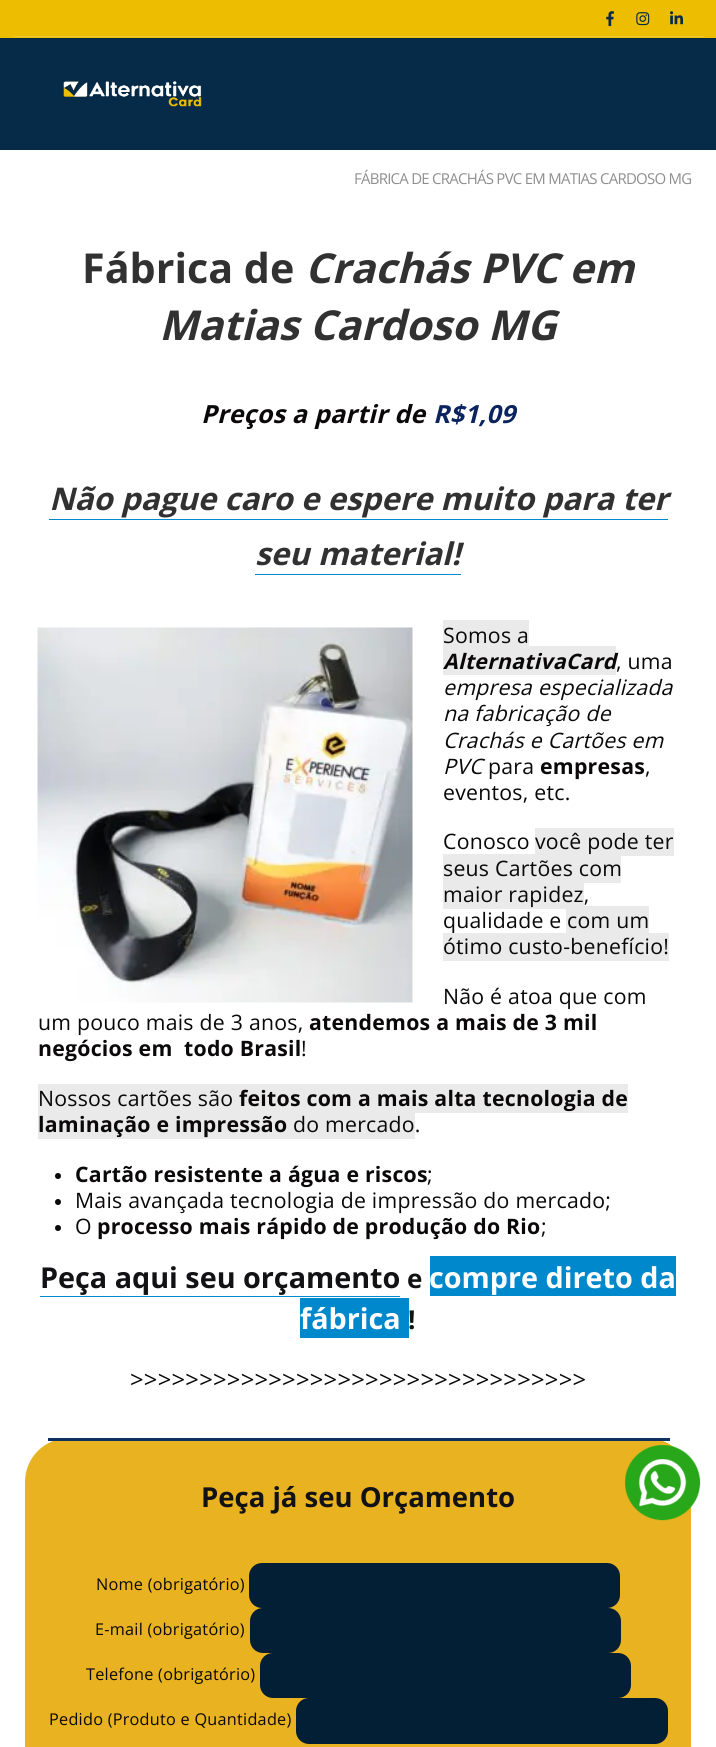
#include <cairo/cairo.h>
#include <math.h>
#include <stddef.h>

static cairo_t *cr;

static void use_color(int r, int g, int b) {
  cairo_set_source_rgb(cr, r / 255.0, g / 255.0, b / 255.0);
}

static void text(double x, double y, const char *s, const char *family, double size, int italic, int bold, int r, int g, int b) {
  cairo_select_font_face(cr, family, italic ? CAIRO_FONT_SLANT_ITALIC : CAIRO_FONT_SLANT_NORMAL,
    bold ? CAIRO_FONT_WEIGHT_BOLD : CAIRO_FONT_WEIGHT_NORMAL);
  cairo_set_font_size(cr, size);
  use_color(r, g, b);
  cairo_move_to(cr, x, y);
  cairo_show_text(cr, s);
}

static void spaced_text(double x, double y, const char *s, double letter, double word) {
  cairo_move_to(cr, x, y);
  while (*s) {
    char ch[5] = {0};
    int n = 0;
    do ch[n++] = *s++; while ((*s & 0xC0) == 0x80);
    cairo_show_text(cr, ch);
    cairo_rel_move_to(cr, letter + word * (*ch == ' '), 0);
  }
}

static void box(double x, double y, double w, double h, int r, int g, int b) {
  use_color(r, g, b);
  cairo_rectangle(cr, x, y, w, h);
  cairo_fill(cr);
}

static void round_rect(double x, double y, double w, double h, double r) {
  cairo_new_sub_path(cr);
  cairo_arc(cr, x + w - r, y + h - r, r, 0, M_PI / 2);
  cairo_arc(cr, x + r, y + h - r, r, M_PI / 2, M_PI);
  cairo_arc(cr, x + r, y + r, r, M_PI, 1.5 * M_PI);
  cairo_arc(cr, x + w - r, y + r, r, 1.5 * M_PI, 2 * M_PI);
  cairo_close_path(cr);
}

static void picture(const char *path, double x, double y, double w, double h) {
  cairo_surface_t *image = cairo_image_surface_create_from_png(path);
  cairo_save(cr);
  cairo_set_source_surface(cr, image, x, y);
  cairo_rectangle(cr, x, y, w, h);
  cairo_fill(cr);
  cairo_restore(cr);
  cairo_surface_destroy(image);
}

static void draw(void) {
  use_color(255, 255, 255);
  cairo_paint(cr);
  box(0, 0, 716, 38, 237, 189, 1);
  picture("img_01.png", 606, 11, 8, 16);
  picture("img_02.png", 636, 12, 14, 14);
  picture("img_03.png", 670, 11, 13, 14);
  box(13, 36, 691, 1, 239, 201, 50);
  box(0, 38, 716, 112, 6, 43, 72);
  picture("img_04.png", 63, 81, 139, 26);
  box(49, 519, 619, 1, 0, 136, 204);
  box(255, 574, 206, 1, 0, 136, 204);
  picture("img_05.png", 37, 627, 376, 376);
  box(443, 620, 86, 26, 234, 234, 234);
  box(443, 646, 173, 29, 234, 234, 234);
  box(535, 828, 139, 28, 234, 234, 234);
  box(443, 854, 178, 29, 234, 234, 234);
  box(443, 883, 141, 26, 234, 234, 234);
  box(38, 1084, 195, 26, 234, 234, 234);
  box(233, 1084, 395, 29, 234, 234, 234);
  box(38, 1110, 248, 29, 234, 234, 234);
  box(286, 1113, 129, 26, 234, 234, 234);
  use_color(10, 8, 8);
  cairo_arc(cr, 58, 1176, 3, 0, 2 * M_PI);
  cairo_fill(cr);
  cairo_arc(cr, 58, 1202, 3, 0, 2 * M_PI);
  cairo_fill(cr);
  cairo_arc(cr, 58, 1228, 3, 0, 2 * M_PI);
  cairo_fill(cr);
  box(40, 1296, 360, 1, 0, 136, 204);
  box(430, 1256, 246, 40, 0, 136, 204);
  box(300, 1298, 109, 40, 0, 136, 204);
  use_color(232, 178, 32);
  round_rect(25, 1438, 666, 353, 44);
  cairo_fill(cr);
  box(48, 1438, 622, 3, 15, 49, 99);
  use_color(3, 31, 54);
  round_rect(249, 1563, 371, 45, 13);
  cairo_fill(cr);
  round_rect(249.5, 1563.5, 370, 44, 12.5);
  cairo_set_source_rgba(cr, 0, 0, 0, 0.08);
  cairo_set_line_width(cr, 1);
  cairo_stroke(cr);
  use_color(3, 31, 54);
  round_rect(250, 1608, 371, 45, 13);
  cairo_fill(cr);
  round_rect(250.5, 1608.5, 370, 44, 12.5);
  cairo_set_source_rgba(cr, 0, 0, 0, 0.08);
  cairo_stroke(cr);
  use_color(3, 31, 54);
  round_rect(260, 1653, 371, 45, 13);
  cairo_fill(cr);
  round_rect(260.5, 1653.5, 370, 44, 12.5);
  cairo_set_source_rgba(cr, 0, 0, 0, 0.08);
  cairo_stroke(cr);
  use_color(3, 31, 54);
  round_rect(296, 1698, 372, 46, 13);
  cairo_fill(cr);
  round_rect(296.5, 1698.5, 371, 45, 12.5);
  cairo_set_source_rgba(cr, 0, 0, 0, 0.08);
  cairo_stroke(cr);
  picture("img_06.png", 625, 1445, 76, 76);
  cairo_select_font_face(cr, "Open Sans", CAIRO_FONT_SLANT_NORMAL, CAIRO_FONT_WEIGHT_NORMAL);
  cairo_set_font_size(cr, 15);
  use_color(142, 142, 142);
  spaced_text(354, 184, "FÁBRICA DE CRACHÁS PVC EM MATIAS CARDOSO MG", -0.75, 0);
  text(82, 283, "Fábrica de", "Open Sans", 41.25, 0, 1, 49, 49, 49);
  text(305, 283, "Crachás PVC em", "Open Sans", 41.25, 1, 1, 49, 49, 49);
  text(159, 340, "Matias Cardoso MG", "Open Sans", 41.25, 1, 1, 49, 49, 49);
  cairo_set_font_size(cr, 25);
  use_color(10, 8, 8);
  spaced_text(201, 423, "Preços a partir de", 0.25, 0);
  use_color(12, 36, 94);
  spaced_text(433, 423, "R$1,09", 0.25, 0);
  text(49, 510, "Não pague caro e espere muito para ter", "Open Sans", 31.25, 1, 1, 49, 49, 49);
  text(255, 565, "seu material!", "Open Sans", 31.25, 1, 1, 49, 49, 49);
  cairo_select_font_face(cr, "Open Sans", CAIRO_FONT_SLANT_NORMAL, CAIRO_FONT_WEIGHT_NORMAL);
  cairo_set_font_size(cr, 21.25);
  use_color(10, 8, 8);
  spaced_text(443, 643, "Somos a", 0.25, 0);
  cairo_select_font_face(cr, "Open Sans", CAIRO_FONT_SLANT_ITALIC, CAIRO_FONT_WEIGHT_BOLD);
  spaced_text(443, 669, "AlternativaCard", 0.25, 0);
  cairo_select_font_face(cr, "Open Sans", CAIRO_FONT_SLANT_NORMAL, CAIRO_FONT_WEIGHT_NORMAL);
  spaced_text(616, 669, ", uma", 0.25, 0);
  cairo_select_font_face(cr, "Open Sans", CAIRO_FONT_SLANT_ITALIC, CAIRO_FONT_WEIGHT_NORMAL);
  spaced_text(443, 695, "empresa especializada", 0.25, 0);
  spaced_text(443, 721, "na fabricação de", 0.25, 0);
  spaced_text(443, 748, "Crachás e Cartões em", 0.25, 0);
  spaced_text(443, 774, "PVC", 0.25, 0);
  cairo_select_font_face(cr, "Open Sans", CAIRO_FONT_SLANT_NORMAL, CAIRO_FONT_WEIGHT_NORMAL);
  spaced_text(488, 774, "para", 0.25, 0);
  cairo_select_font_face(cr, "Open Sans", CAIRO_FONT_SLANT_NORMAL, CAIRO_FONT_WEIGHT_BOLD);
  spaced_text(540, 774, "empresas", 0.25, 0);
  cairo_select_font_face(cr, "Open Sans", CAIRO_FONT_SLANT_NORMAL, CAIRO_FONT_WEIGHT_NORMAL);
  spaced_text(645, 774, ",", 0.25, 0);
  spaced_text(443, 800, "eventos, etc.", 0.25, 0);
  spaced_text(443, 849, "Conosco", 0.25, 0);
  spaced_text(535, 849, "você pode ter", 0.25, 0);
  spaced_text(443, 876, "seus Cartões com", 0.25, 0);
  spaced_text(443, 902, "maior rapidez,", 0.25, 0);
  spaced_text(443, 928, "qualidade e", 0.25, 0);
  box(566, 906, 83, 27, 234, 234, 234);
  use_color(10, 8, 8);
  spaced_text(567, 928, "com um", 0.25, 0);
  box(443, 933, 226, 28, 234, 234, 234);
  use_color(10, 8, 8);
  spaced_text(443, 954, "ótimo custo-benefício!", 0.25, 0);
  spaced_text(443, 1004, "Não é atoa que com", 0.25, 0);
  spaced_text(38, 1030, "um pouco mais de 3 anos,", 0.25, 0);
  cairo_select_font_face(cr, "Open Sans", CAIRO_FONT_SLANT_NORMAL, CAIRO_FONT_WEIGHT_BOLD);
  spaced_text(309, 1030, "atendemos a mais de 3 mil", 0.25, 0);
  spaced_text(38, 1056, "negócios em  todo Brasil", 0.25, 0);
  cairo_select_font_face(cr, "Open Sans", CAIRO_FONT_SLANT_NORMAL, CAIRO_FONT_WEIGHT_NORMAL);
  spaced_text(301, 1056, "!", 0.25, 0);
  spaced_text(38, 1106, "Nossos cartões são", 0.25, 0);
  cairo_select_font_face(cr, "Open Sans", CAIRO_FONT_SLANT_NORMAL, CAIRO_FONT_WEIGHT_BOLD);
  spaced_text(239, 1106, "feitos com a mais alta tecnologia de", 0.25, 0);
  spaced_text(38, 1132, "laminação e impressão", 0.25, 0);
  cairo_select_font_face(cr, "Open Sans", CAIRO_FONT_SLANT_NORMAL, CAIRO_FONT_WEIGHT_NORMAL);
  spaced_text(293, 1132, "do mercado.", 0.25, 0);
  cairo_select_font_face(cr, "Open Sans", CAIRO_FONT_SLANT_NORMAL, CAIRO_FONT_WEIGHT_BOLD);
  spaced_text(75, 1182, "Cartão resistente a água e riscos", 0.25, 0);
  cairo_select_font_face(cr, "Open Sans", CAIRO_FONT_SLANT_NORMAL, CAIRO_FONT_WEIGHT_NORMAL);
  spaced_text(427, 1182, ";", 0.25, 0);
  spaced_text(75, 1208, "Mais avançada tecnologia de impressão do mercado;", 0.25, 0);
  spaced_text(75, 1234, "O", 0.25, 0);
  cairo_select_font_face(cr, "Open Sans", CAIRO_FONT_SLANT_NORMAL, CAIRO_FONT_WEIGHT_BOLD);
  spaced_text(97, 1234, "processo mais rápido de produção do Rio", 0.25, 0);
  cairo_select_font_face(cr, "Open Sans", CAIRO_FONT_SLANT_NORMAL, CAIRO_FONT_WEIGHT_NORMAL);
  spaced_text(541, 1234, ";", 0.25, 0);
  text(40, 1288, "Peça aqui seu orçamento", "Open Sans", 28.75, 0, 1, 18, 18, 20);
  text(407, 1288, "e", "Open Sans", 26, 0, 1, 18, 18, 20);
  text(429, 1288, "compre direto da", "Open Sans", 28.75, 0, 1, 255, 255, 255);
  text(300, 1329, "fábrica", "Open Sans", 28.75, 0, 1, 255, 255, 255);
  text(408, 1329, "!", "Open Sans", 26, 0, 1, 18, 18, 20);
  cairo_select_font_face(cr, "Open Sans", CAIRO_FONT_SLANT_NORMAL, CAIRO_FONT_WEIGHT_NORMAL);
  cairo_set_font_size(cr, 23.75);
  use_color(10, 8, 8);
  spaced_text(130, 1388, ">>>>>>>>>>>>>>>>>>>>>>>>>>>>>>>>>", 0.25, 0);
  text(201, 1507, "Peça já seu Orçamento", "Open Sans", 27.5, 0, 1, 18, 18, 20);
  cairo_select_font_face(cr, "Open Sans", CAIRO_FONT_SLANT_NORMAL, CAIRO_FONT_WEIGHT_NORMAL);
  cairo_set_font_size(cr, 16.25);
  use_color(10, 8, 8);
  spaced_text(96, 1590, "Nome (obrigatório)", 0.25, 0);
  spaced_text(95, 1635, "E-mail (obrigatório)", 0.25, 0);
  spaced_text(86, 1680, "Telefone (obrigatório)", 0.25, 0);
  spaced_text(49, 1725, "Pedido (Produto e Quantidade)", 0.25, 0);
}

int main(void) {
  cairo_surface_t *surface = cairo_image_surface_create(CAIRO_FORMAT_RGB24, 716, 1747);
  cr = cairo_create(surface);
  cairo_font_options_t *options = cairo_font_options_create();
  cairo_font_options_set_hint_metrics(options, CAIRO_HINT_METRICS_OFF);
  cairo_font_options_set_hint_style(options, CAIRO_HINT_STYLE_NONE);
  cairo_set_font_options(cr, options);
  cairo_set_miter_limit(cr, 4);
  draw();
  cairo_surface_write_to_png(surface, "out.png");
  cairo_font_options_destroy(options);
  cairo_destroy(cr);
  cairo_surface_destroy(surface);
  return 0;
}
